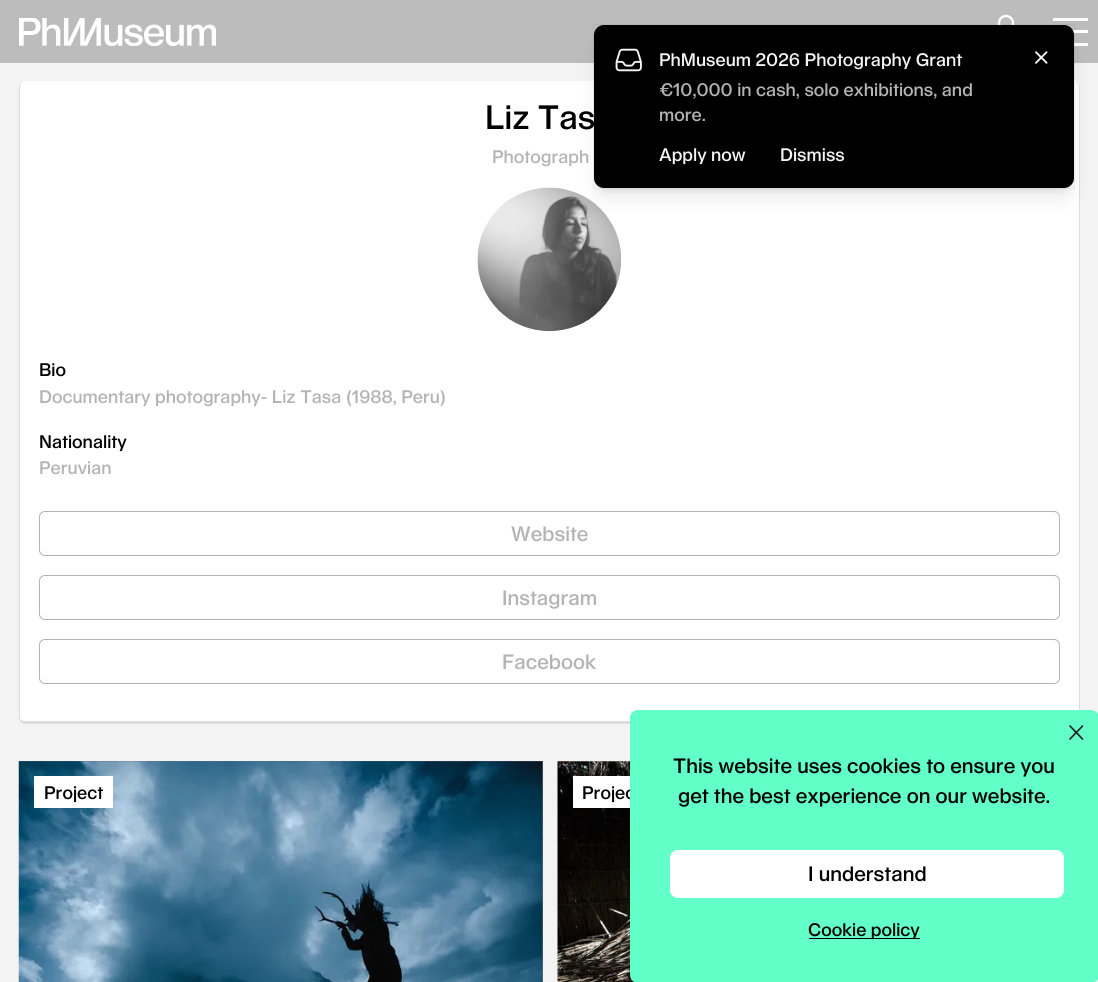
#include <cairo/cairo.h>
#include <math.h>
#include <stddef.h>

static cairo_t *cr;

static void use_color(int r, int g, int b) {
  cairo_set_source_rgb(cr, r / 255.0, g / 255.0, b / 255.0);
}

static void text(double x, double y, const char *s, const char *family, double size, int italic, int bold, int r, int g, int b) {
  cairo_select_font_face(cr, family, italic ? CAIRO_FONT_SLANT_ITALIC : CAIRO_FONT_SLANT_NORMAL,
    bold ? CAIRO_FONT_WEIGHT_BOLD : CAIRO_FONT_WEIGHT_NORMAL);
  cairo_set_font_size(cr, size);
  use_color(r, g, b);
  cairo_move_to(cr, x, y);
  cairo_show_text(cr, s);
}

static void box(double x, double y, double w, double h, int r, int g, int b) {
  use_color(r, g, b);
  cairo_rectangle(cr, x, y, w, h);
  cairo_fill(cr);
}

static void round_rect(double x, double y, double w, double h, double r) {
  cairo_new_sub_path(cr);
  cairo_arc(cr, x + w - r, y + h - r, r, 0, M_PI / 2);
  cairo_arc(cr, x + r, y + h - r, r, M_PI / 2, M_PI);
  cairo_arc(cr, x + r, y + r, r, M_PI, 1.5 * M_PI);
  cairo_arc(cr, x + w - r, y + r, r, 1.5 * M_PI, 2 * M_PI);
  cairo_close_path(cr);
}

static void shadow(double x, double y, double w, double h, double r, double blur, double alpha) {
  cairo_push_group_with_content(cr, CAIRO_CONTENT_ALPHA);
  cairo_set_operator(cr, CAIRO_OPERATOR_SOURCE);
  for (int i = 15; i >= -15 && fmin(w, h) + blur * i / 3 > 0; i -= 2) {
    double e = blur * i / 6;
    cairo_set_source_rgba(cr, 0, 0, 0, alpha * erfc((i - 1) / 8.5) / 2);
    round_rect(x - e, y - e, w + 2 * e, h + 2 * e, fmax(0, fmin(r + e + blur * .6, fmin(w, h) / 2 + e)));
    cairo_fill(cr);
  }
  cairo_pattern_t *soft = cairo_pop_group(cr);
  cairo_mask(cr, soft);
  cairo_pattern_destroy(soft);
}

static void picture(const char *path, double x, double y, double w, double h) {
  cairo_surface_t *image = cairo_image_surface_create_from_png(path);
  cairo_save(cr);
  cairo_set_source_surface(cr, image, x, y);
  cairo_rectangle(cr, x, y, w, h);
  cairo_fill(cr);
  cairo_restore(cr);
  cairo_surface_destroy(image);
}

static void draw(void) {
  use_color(243, 243, 243);
  cairo_paint(cr);
  box(0, 0, 1098, 63, 188, 188, 188);
  cairo_arc(cr, 1006, 23, 7, 0, 2 * M_PI);
  use_color(255, 255, 255);
  cairo_set_line_width(cr, 2.4);
  cairo_stroke(cr);
  picture("img_01.png", 19, 18, 197, 28);
  box(1053, 18, 35, 3, 255, 255, 255);
  box(1072, 30, 16, 3, 255, 255, 255);
  box(1074, 43, 14, 3, 255, 255, 255);
  cairo_new_path(cr);
  cairo_move_to(cr, 25, 81);
  cairo_line_to(cr, 1074, 81);
  cairo_curve_to(cr, 1077, 81, 1079, 84, 1079, 88);
  cairo_line_to(cr, 1079, 718);
  cairo_curve_to(cr, 1079, 720, 1077, 721, 1074, 721);
  cairo_line_to(cr, 25, 721);
  cairo_curve_to(cr, 22, 721, 20, 720, 20, 718);
  cairo_line_to(cr, 20, 88);
  cairo_curve_to(cr, 20, 84, 22, 81, 25, 81);
  cairo_close_path(cr);
  cairo_fill(cr);
  use_color(221, 221, 221);
  cairo_set_fill_rule(cr, CAIRO_FILL_RULE_EVEN_ODD);
  cairo_new_path(cr);
  cairo_move_to(cr, 25, 81);
  cairo_line_to(cr, 1074, 81);
  cairo_curve_to(cr, 1077, 81, 1080, 84, 1080, 88);
  cairo_line_to(cr, 1080, 718);
  cairo_curve_to(cr, 1080, 721, 1077, 724, 1074, 724);
  cairo_line_to(cr, 25, 724);
  cairo_curve_to(cr, 22, 724, 19, 721, 19, 718);
  cairo_line_to(cr, 19, 88);
  cairo_curve_to(cr, 19, 84, 22, 81, 25, 81);
  cairo_close_path(cr);
  cairo_move_to(cr, 25, 81);
  cairo_line_to(cr, 1074, 81);
  cairo_curve_to(cr, 1077, 81, 1079, 84, 1079, 88);
  cairo_line_to(cr, 1079, 718);
  cairo_curve_to(cr, 1079, 720, 1077, 721, 1074, 721);
  cairo_line_to(cr, 25, 721);
  cairo_curve_to(cr, 22, 721, 20, 720, 20, 718);
  cairo_line_to(cr, 20, 88);
  cairo_curve_to(cr, 20, 84, 22, 81, 25, 81);
  cairo_close_path(cr);
  cairo_fill(cr);
  picture("img_02.png", 477, 187, 145, 145);
  round_rect(39.5, 511.5, 1020, 44, 5.5);
  use_color(180, 180, 180);
  cairo_set_line_width(cr, 1);
  cairo_stroke(cr);
  round_rect(39.5, 575.5, 1020, 44, 5.5);
  cairo_stroke(cr);
  round_rect(39.5, 639.5, 1020, 44, 5.5);
  cairo_stroke(cr);
  box(19, 761, 524, 221, 107, 114, 128);
  picture("img_03.png", 18, 761, 525, 221);
  box(34, 776, 79, 32, 255, 255, 255);
  picture("img_04.png", 557, 761, 78, 221);
  box(573, 776, 57, 32, 255, 255, 255);
  use_color(0, 0, 0);
  shadow(599, 35, 470, 153, 5, 4, 0.1);
  shadow(598, 41, 472, 155, 6, 9.5, 0.1);
  text(485, 129, "Liz Tas", "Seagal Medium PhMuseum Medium", 32.5, 0, 0, 0, 0, 0);
  text(492, 163, "Photograph", "Seagal Medium PhMuseum Medium", 17.5, 0, 0, 180, 180, 180);
  text(39, 376, "Bio", "Seagal Medium PhMuseum Medium", 17.5, 0, 0, 0, 0, 0);
  text(39, 403, "Documentary photography- Liz Tasa (1988, Peru)", "Seagal Medium PhMuseum Medium", 17.5, 0, 0, 180, 180, 180);
  text(39, 448, "Nationality", "Seagal Medium PhMuseum Medium", 17.5, 0, 0, 0, 0, 0);
  text(39, 474, "Peruvian", "Seagal Medium PhMuseum Medium", 17.5, 0, 0, 180, 180, 180);
  text(511, 541, "Website", "Seagal Medium PhMuseum Medium", 20, 0, 0, 180, 180, 180);
  text(502, 605, "Instagram", "Seagal Medium PhMuseum Medium", 20, 0, 0, 180, 180, 180);
  text(502, 669, "Facebook", "Seagal Medium PhMuseum Medium", 20, 0, 0, 180, 180, 180);
  text(44, 799, "Project", "Seagal Medium PhMuseum Medium", 17.5, 0, 0, 0, 0, 0);
  text(582, 799, "Projec", "Seagal Medium PhMuseum Medium", 17.5, 0, 0, 0, 0, 0);
  cairo_rectangle(cr, 593.5, 24.5, 481, 164);
  cairo_set_source_rgba(cr, 0, 0, 0, 0.05);
  cairo_stroke(cr);
  use_color(0, 0, 0);
  round_rect(594, 25, 480, 163, 10);
  cairo_fill(cr);
  picture("img_05.png", 615, 48, 27, 24);
  text(659, 66, "PhMuseum 2026 Photography Grant", "Seagal Medium PhMuseum Medium", 17.5, 0, 0, 243, 243, 243);
  text(659, 96, "€10,000 in cash, solo exhibitions, and", "Seagal Medium PhMuseum Medium", 17.5, 0, 0, 180, 180, 180);
  text(659, 121, "more.", "Seagal Medium PhMuseum Medium", 17.5, 0, 0, 180, 180, 180);
  text(659, 161, "Apply now", "Seagal Medium PhMuseum Medium", 17.5, 0, 0, 243, 243, 243);
  text(780, 161, "Dismiss", "Seagal Medium PhMuseum Medium", 17.5, 0, 0, 243, 243, 243);
  picture("img_06.png", 1035, 51, 13, 13);
  use_color(98, 255, 201);
  round_rect(630, 710, 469, 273, 8);
  cairo_fill(cr);
  cairo_new_path(cr);
  cairo_move_to(cr, 1070, 739);
  cairo_line_to(cr, 1082.5, 726);
  cairo_move_to(cr, 1070, 726);
  cairo_line_to(cr, 1082.5, 739);
  use_color(26, 26, 26);
  cairo_set_line_width(cr, 1.6);
  cairo_set_line_cap(cr, CAIRO_LINE_CAP_ROUND);
  cairo_set_line_join(cr, CAIRO_LINE_JOIN_ROUND);
  cairo_stroke(cr);
  text(673, 773, "This website uses cookies to ensure you", "Seagal Medium PhMuseum Medium", 20, 0, 0, 0, 0, 0);
  text(678, 803, "get the best experience on our website.", "Seagal Medium PhMuseum Medium", 20, 0, 0, 0, 0, 0);
  use_color(255, 255, 255);
  round_rect(670.5, 850.5, 393, 47, 7.5);
  cairo_fill_preserve(cr);
  cairo_set_line_width(cr, 1);
  cairo_set_line_cap(cr, CAIRO_LINE_CAP_BUTT);
  cairo_set_line_join(cr, CAIRO_LINE_JOIN_MITER);
  cairo_stroke(cr);
  text(808, 881, "I understand", "Seagal Medium PhMuseum Medium", 20, 0, 0, 0, 0, 0);
  box(809, 938, 111, 1, 0, 0, 0);
  text(808, 936, "Cookie policy", "Seagal Medium PhMuseum Medium", 17.5, 0, 0, 0, 0, 0);
}

int main(void) {
  cairo_surface_t *surface = cairo_image_surface_create(CAIRO_FORMAT_RGB24, 1098, 982);
  cr = cairo_create(surface);
  cairo_font_options_t *options = cairo_font_options_create();
  cairo_font_options_set_hint_metrics(options, CAIRO_HINT_METRICS_OFF);
  cairo_font_options_set_hint_style(options, CAIRO_HINT_STYLE_NONE);
  cairo_set_font_options(cr, options);
  cairo_set_miter_limit(cr, 4);
  draw();
  cairo_surface_write_to_png(surface, "out.png");
  cairo_font_options_destroy(options);
  cairo_destroy(cr);
  cairo_surface_destroy(surface);
  return 0;
}
